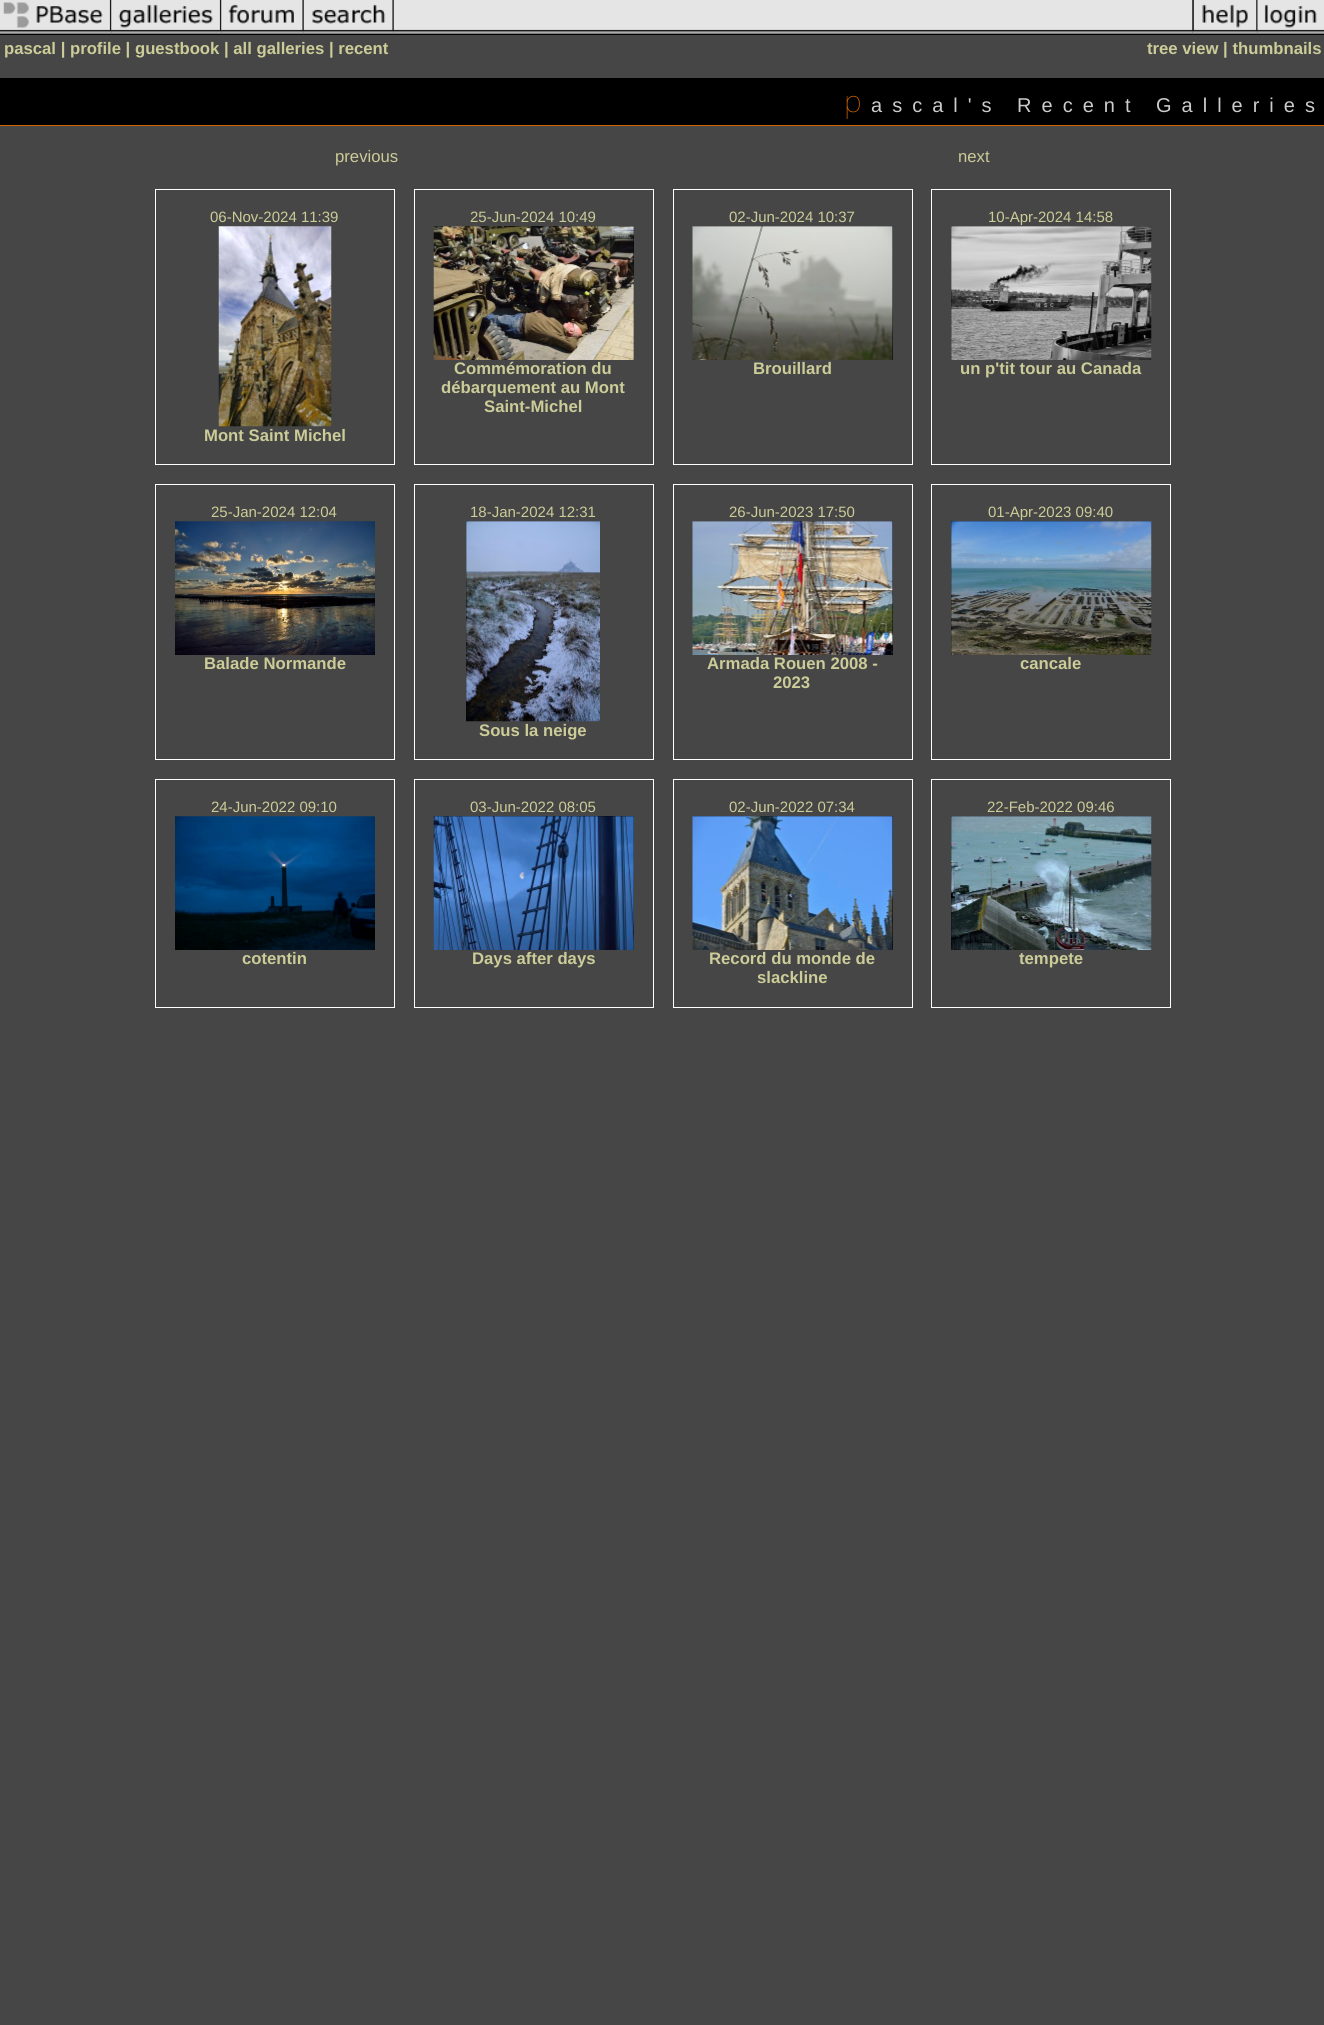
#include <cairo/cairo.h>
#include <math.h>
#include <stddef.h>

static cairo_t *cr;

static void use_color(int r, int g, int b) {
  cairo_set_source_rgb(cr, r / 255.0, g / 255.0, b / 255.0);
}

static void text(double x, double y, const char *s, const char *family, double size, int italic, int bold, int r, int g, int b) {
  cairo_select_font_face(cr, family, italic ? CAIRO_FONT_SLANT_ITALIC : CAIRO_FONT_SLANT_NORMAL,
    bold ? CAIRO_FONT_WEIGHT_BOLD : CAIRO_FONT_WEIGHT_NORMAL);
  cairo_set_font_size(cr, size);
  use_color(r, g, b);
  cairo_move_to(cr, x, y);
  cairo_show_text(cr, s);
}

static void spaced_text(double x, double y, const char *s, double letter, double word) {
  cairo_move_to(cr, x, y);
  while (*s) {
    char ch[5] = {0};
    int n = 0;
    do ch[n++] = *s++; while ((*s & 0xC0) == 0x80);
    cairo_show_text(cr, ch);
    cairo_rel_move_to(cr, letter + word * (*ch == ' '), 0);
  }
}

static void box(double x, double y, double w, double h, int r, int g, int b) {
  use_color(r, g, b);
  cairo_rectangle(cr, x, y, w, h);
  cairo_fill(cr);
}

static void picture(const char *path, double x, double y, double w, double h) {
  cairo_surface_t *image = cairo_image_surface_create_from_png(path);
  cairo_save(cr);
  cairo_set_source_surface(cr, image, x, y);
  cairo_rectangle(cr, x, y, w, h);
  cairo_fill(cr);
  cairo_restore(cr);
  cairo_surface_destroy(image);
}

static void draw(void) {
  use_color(70, 70, 70);
  cairo_paint(cr);
  picture("img_01.png", 0, 0, 112, 35);
  picture("img_02.png", 111, 0, 111, 35);
  picture("img_03.png", 221, 0, 83, 35);
  picture("img_04.png", 303, 0, 91, 35);
  picture("img_05.png", 393, 0, 800, 35);
  picture("img_06.png", 1192, 0, 66, 35);
  picture("img_07.png", 1257, 0, 67, 35);
  box(0, 78, 1324, 47, 0, 0, 0);
  box(0, 125, 1324, 1, 204, 102, 0);
  cairo_rectangle(cr, 155.5, 189.5, 239, 275);
  use_color(255, 255, 255);
  cairo_set_line_width(cr, 1);
  cairo_stroke(cr);
  picture("img_08.png", 218, 226, 114, 201);
  cairo_rectangle(cr, 414.5, 189.5, 239, 275);
  cairo_stroke(cr);
  box(434, 226, 200, 134, 0, 0, 0);
  picture("img_09.png", 433, 226, 201, 134);
  cairo_rectangle(cr, 673.5, 189.5, 239, 275);
  use_color(255, 255, 255);
  cairo_stroke(cr);
  box(693, 226, 200, 134, 0, 0, 0);
  picture("img_10.png", 692, 226, 201, 134);
  cairo_rectangle(cr, 931.5, 189.5, 239, 275);
  use_color(255, 255, 255);
  cairo_stroke(cr);
  box(951, 226, 200, 134, 0, 0, 0);
  picture("img_11.png", 951, 226, 201, 134);
  cairo_rectangle(cr, 155.5, 484.5, 239, 275);
  use_color(255, 255, 255);
  cairo_stroke(cr);
  picture("img_12.png", 175, 521, 200, 134);
  cairo_rectangle(cr, 414.5, 484.5, 239, 275);
  cairo_stroke(cr);
  box(466, 521, 134, 200, 0, 0, 0);
  picture("img_13.png", 466, 521, 134, 201);
  cairo_rectangle(cr, 673.5, 484.5, 239, 275);
  use_color(255, 255, 255);
  cairo_stroke(cr);
  box(693, 521, 200, 134, 0, 0, 0);
  picture("img_14.png", 692, 521, 201, 134);
  cairo_rectangle(cr, 931.5, 484.5, 239, 275);
  use_color(255, 255, 255);
  cairo_stroke(cr);
  box(951, 521, 200, 134, 0, 0, 0);
  picture("img_15.png", 951, 521, 201, 134);
  cairo_rectangle(cr, 155.5, 779.5, 239, 228);
  use_color(255, 255, 255);
  cairo_stroke(cr);
  picture("img_16.png", 175, 816, 200, 134);
  cairo_rectangle(cr, 414.5, 779.5, 239, 228);
  cairo_stroke(cr);
  box(434, 816, 200, 134, 0, 0, 0);
  picture("img_17.png", 433, 816, 201, 134);
  cairo_rectangle(cr, 673.5, 779.5, 239, 228);
  use_color(255, 255, 255);
  cairo_stroke(cr);
  box(693, 816, 200, 134, 0, 0, 0);
  picture("img_18.png", 692, 816, 201, 134);
  cairo_rectangle(cr, 931.5, 779.5, 239, 228);
  use_color(255, 255, 255);
  cairo_stroke(cr);
  box(951, 816, 200, 134, 0, 0, 0);
  picture("img_19.png", 951, 816, 201, 134);
  text(4, 54, "pascal | profile | guestbook | all galleries | recent", "Liberation Sans", 16.7, 0, 1, 204, 204, 153);
  text(1147, 54, "tree view | thumbnails", "Liberation Sans", 16.7, 0, 1, 204, 204, 153);
  cairo_select_font_face(cr, "Noto Sans Thin", CAIRO_FONT_SLANT_NORMAL, CAIRO_FONT_WEIGHT_NORMAL);
  cairo_set_font_size(cr, 30);
  use_color(204, 102, 0);
  spaced_text(844, 112, "p", 10, 0);
  cairo_select_font_face(cr, "Liberation Sans", CAIRO_FONT_SLANT_NORMAL, CAIRO_FONT_WEIGHT_NORMAL);
  cairo_set_font_size(cr, 20);
  use_color(204, 204, 204);
  spaced_text(871, 112, "ascal's Recent Galleries", 10, 0);
  text(335, 162, "previous", "Liberation Sans", 16.7, 0, 0, 204, 204, 153);
  text(958, 162, "next", "Liberation Sans", 16.7, 0, 0, 204, 204, 153);
  text(210, 222, "06-Nov-2024 11:39", "Liberation Sans", 15, 0, 0, 204, 204, 153);
  text(204, 441, "Mont Saint Michel", "Liberation Sans", 16.7, 0, 1, 204, 204, 153);
  text(470, 222, "25-Jun-2024 10:49", "Liberation Sans", 15, 0, 0, 204, 204, 153);
  text(454, 374, "Commémoration du", "Liberation Sans", 16.7, 0, 1, 204, 204, 153);
  text(441, 393, "débarquement au Mont", "Liberation Sans", 16.7, 0, 1, 204, 204, 153);
  text(484, 412, "Saint-Michel", "Liberation Sans", 16.7, 0, 1, 204, 204, 153);
  text(729, 222, "02-Jun-2024 10:37", "Liberation Sans", 15, 0, 0, 204, 204, 153);
  text(753, 374, "Brouillard", "Liberation Sans", 16.7, 0, 1, 204, 204, 153);
  text(988, 222, "10-Apr-2024 14:58", "Liberation Sans", 15, 0, 0, 204, 204, 153);
  text(960, 374, "un p'tit tour au Canada", "Liberation Sans", 16.7, 0, 1, 204, 204, 153);
  text(211, 517, "25-Jan-2024 12:04", "Liberation Sans", 15, 0, 0, 204, 204, 153);
  text(204, 669, "Balade Normande", "Liberation Sans", 16.7, 0, 1, 204, 204, 153);
  text(470, 517, "18-Jan-2024 12:31", "Liberation Sans", 15, 0, 0, 204, 204, 153);
  text(479, 736, "Sous la neige", "Liberation Sans", 16.7, 0, 1, 204, 204, 153);
  text(729, 517, "26-Jun-2023 17:50", "Liberation Sans", 15, 0, 0, 204, 204, 153);
  text(707, 669, "Armada Rouen 2008 -", "Liberation Sans", 16.7, 0, 1, 204, 204, 153);
  text(773, 688, "2023", "Liberation Sans", 16.7, 0, 1, 204, 204, 153);
  text(988, 517, "01-Apr-2023 09:40", "Liberation Sans", 15, 0, 0, 204, 204, 153);
  text(1020, 669, "cancale", "Liberation Sans", 16.7, 0, 1, 204, 204, 153);
  text(211, 812, "24-Jun-2022 09:10", "Liberation Sans", 15, 0, 0, 204, 204, 153);
  text(242, 964, "cotentin", "Liberation Sans", 16.7, 0, 1, 204, 204, 153);
  text(470, 812, "03-Jun-2022 08:05", "Liberation Sans", 15, 0, 0, 204, 204, 153);
  text(472, 964, "Days after days", "Liberation Sans", 16.7, 0, 1, 204, 204, 153);
  text(729, 812, "02-Jun-2022 07:34", "Liberation Sans", 15, 0, 0, 204, 204, 153);
  text(709, 964, "Record du monde de", "Liberation Sans", 16.7, 0, 1, 204, 204, 153);
  text(757, 983, "slackline", "Liberation Sans", 16.7, 0, 1, 204, 204, 153);
  text(987, 812, "22-Feb-2022 09:46", "Liberation Sans", 15, 0, 0, 204, 204, 153);
  text(1019, 964, "tempete", "Liberation Sans", 16.7, 0, 1, 204, 204, 153);
}

int main(void) {
  cairo_surface_t *surface = cairo_image_surface_create(CAIRO_FORMAT_RGB24, 1324, 2025);
  cr = cairo_create(surface);
  cairo_font_options_t *options = cairo_font_options_create();
  cairo_font_options_set_hint_metrics(options, CAIRO_HINT_METRICS_OFF);
  cairo_font_options_set_hint_style(options, CAIRO_HINT_STYLE_NONE);
  cairo_set_font_options(cr, options);
  cairo_set_miter_limit(cr, 4);
  draw();
  cairo_surface_write_to_png(surface, "out.png");
  cairo_font_options_destroy(options);
  cairo_destroy(cr);
  cairo_surface_destroy(surface);
  return 0;
}
